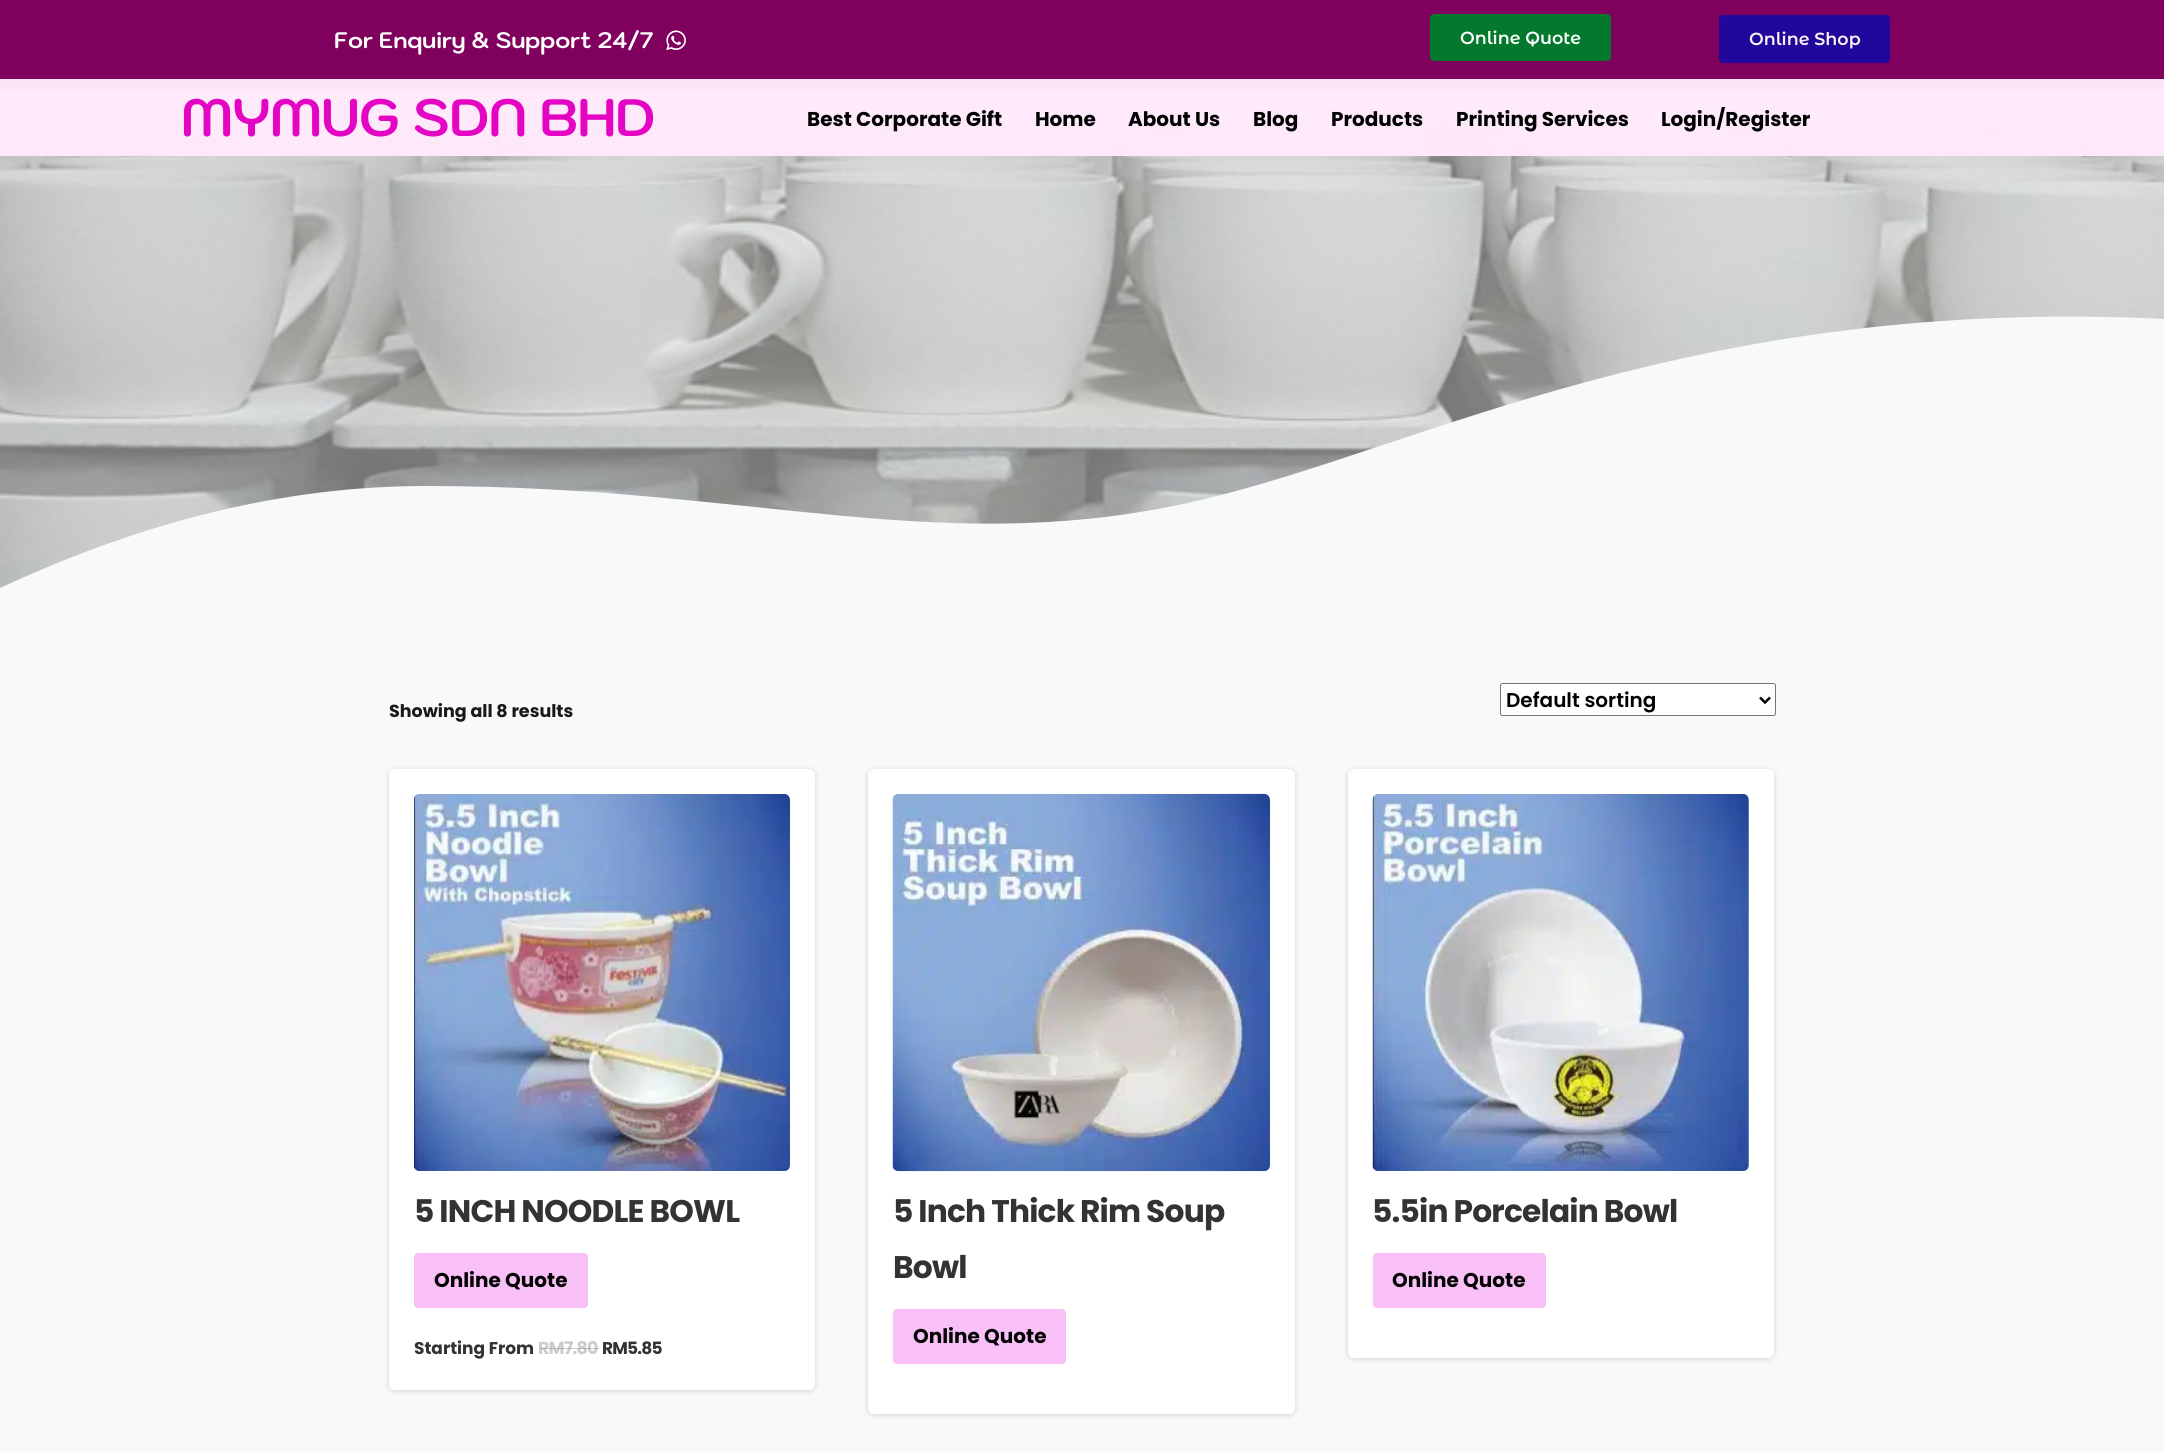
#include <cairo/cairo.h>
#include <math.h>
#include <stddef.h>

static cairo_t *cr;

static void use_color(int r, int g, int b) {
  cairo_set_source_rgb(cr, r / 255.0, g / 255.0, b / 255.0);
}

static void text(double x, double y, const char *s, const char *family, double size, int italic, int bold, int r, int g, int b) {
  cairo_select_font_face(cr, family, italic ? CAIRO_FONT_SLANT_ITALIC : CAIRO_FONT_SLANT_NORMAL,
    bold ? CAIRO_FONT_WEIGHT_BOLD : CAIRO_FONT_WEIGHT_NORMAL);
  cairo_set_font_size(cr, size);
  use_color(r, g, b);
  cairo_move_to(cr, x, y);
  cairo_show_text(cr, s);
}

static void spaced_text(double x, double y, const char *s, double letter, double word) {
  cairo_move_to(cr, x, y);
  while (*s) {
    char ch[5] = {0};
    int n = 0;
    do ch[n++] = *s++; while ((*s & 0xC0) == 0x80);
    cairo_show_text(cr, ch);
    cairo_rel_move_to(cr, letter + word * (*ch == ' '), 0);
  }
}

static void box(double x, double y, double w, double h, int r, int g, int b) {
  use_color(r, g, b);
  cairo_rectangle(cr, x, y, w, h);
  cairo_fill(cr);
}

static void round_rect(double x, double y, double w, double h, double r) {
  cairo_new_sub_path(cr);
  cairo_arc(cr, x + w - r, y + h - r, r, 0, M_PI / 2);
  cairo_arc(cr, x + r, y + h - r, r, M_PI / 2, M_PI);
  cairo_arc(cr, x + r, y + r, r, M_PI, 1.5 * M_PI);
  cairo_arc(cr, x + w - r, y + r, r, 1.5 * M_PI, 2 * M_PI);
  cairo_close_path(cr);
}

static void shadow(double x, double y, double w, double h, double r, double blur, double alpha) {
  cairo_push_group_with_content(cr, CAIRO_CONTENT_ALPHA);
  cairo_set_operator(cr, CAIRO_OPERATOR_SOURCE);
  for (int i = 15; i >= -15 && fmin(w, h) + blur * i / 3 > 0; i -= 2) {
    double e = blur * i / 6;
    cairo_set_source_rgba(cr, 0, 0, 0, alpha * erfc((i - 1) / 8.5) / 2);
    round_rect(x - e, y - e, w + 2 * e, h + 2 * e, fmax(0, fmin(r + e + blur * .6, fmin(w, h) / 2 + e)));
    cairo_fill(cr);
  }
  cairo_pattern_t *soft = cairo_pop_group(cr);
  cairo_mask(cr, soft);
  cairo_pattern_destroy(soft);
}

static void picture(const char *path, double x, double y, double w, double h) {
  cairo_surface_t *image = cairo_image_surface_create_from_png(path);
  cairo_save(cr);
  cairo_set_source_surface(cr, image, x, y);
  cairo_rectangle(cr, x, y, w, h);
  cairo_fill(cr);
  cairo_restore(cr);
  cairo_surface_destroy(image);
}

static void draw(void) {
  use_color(255, 255, 255);
  cairo_paint(cr);
  box(0, 0, 2164, 90, 128, 0, 93);
  picture("img_01.png", 666, 30, 20, 21);
  use_color(2, 121, 44);
  round_rect(1430, 14, 181, 47, 4);
  cairo_fill(cr);
  use_color(33, 7, 156);
  round_rect(1719, 15, 171, 48, 4);
  cairo_fill(cr);
  box(0, 123, 2164, 465, 233, 236, 239);
  picture("img_02.png", 0, 122, 2164, 466);
  cairo_set_source_rgba(cr, 1, 0.914, 0.988, 0.98);
  cairo_rectangle(cr, 0, 79, 2164, 77);
  cairo_fill(cr);
  use_color(248, 249, 250);
  cairo_new_path(cr);
  cairo_move_to(cr, 0, 588);
  cairo_curve_to(cr, 146, 520, 287, 486, 426, 486);
  cairo_curve_to(cr, 760, 486, 947, 562, 1209, 498);
  cairo_curve_to(cr, 1424, 446, 1697, 296, 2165, 319);
  cairo_line_to(cr, 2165, 625);
  cairo_line_to(cr, 0, 624);
  cairo_close_path(cr);
  cairo_fill(cr);
  box(0, 624, 2164, 828, 248, 249, 250);
  use_color(255, 255, 255);
  round_rect(1500.5, 683.5, 275, 32, 2);
  cairo_fill_preserve(cr);
  use_color(118, 118, 118);
  cairo_set_line_width(cr, 1);
  cairo_stroke(cr);
  cairo_new_path(cr);
  cairo_move_to(cr, 1760, 697.5);
  cairo_line_to(cr, 1765, 702.5);
  cairo_line_to(cr, 1770, 697.5);
  use_color(0, 0, 0);
  cairo_set_line_width(cr, 2.5);
  cairo_stroke(cr);
  use_color(0, 0, 0);
  shadow(389, 770, 426, 621, 6, 3, 0.15);
  use_color(255, 255, 255);
  round_rect(389, 769, 426, 621, 6);
  cairo_fill(cr);
  picture("img_03.png", 414, 794, 376, 377);
  use_color(249, 192, 247);
  round_rect(414, 1253, 174, 55, 4);
  cairo_fill(cr);
  use_color(0, 0, 0);
  shadow(868, 770, 427, 645, 6, 3, 0.15);
  use_color(255, 255, 255);
  round_rect(868, 769, 427, 645, 6);
  cairo_fill(cr);
  picture("img_04.png", 892, 793, 378, 379);
  use_color(249, 192, 247);
  round_rect(893, 1309, 173, 55, 4);
  cairo_fill(cr);
  use_color(0, 0, 0);
  shadow(1348, 770, 426, 589, 6, 3, 0.15);
  use_color(255, 255, 255);
  round_rect(1348, 769, 426, 589, 6);
  cairo_fill(cr);
  picture("img_05.png", 1372, 794, 377, 377);
  use_color(249, 192, 247);
  round_rect(1373, 1253, 173, 55, 4);
  cairo_fill(cr);
  text(334, 48, "For Enquiry & Support 24/7", "Kodchasan", 22.5, 0, 1, 255, 254, 255);
  text(1460, 44, "Online Quote", "Montserrat Alternates SemiBold", 17.5, 0, 0, 255, 254, 255);
  text(1749, 45, "Online Shop", "Montserrat Alternates SemiBold", 17.5, 0, 0, 248, 244, 244);
  cairo_select_font_face(cr, "Kodchasan", CAIRO_FONT_SLANT_NORMAL, CAIRO_FONT_WEIGHT_BOLD);
  cairo_set_font_size(cr, 52.5);
  use_color(228, 4, 196);
  spaced_text(181, 136, "MYMUG SDN BHD", -0.8, 0);
  text(807, 126, "Best Corporate Gift", "Poppins", 20, 0, 1, 0, 0, 0);
  text(1035, 126, "Home", "Poppins", 20, 0, 1, 0, 0, 0);
  text(1128, 126, "About Us", "Poppins", 20, 0, 1, 0, 0, 0);
  text(1253, 126, "Blog", "Poppins", 20, 0, 1, 0, 0, 0);
  text(1331, 126, "Products", "Poppins", 20, 0, 1, 0, 0, 0);
  text(1456, 126, "Printing Services", "Poppins", 20, 0, 1, 0, 0, 0);
  text(1661, 126, "Login/Register", "Poppins", 20, 0, 1, 0, 0, 0);
  text(389, 717, "Showing all 8 results", "Poppins", 17.5, 0, 1, 25, 25, 25);
  text(1506, 707, "Default sorting", "Poppins SemiBold", 20, 0, 0, 0, 0, 0);
  cairo_select_font_face(cr, "Poppins", CAIRO_FONT_SLANT_NORMAL, CAIRO_FONT_WEIGHT_BOLD);
  cairo_set_font_size(cr, 31.25);
  use_color(51, 51, 51);
  spaced_text(414, 1222, "5 INCH NOODLE BOWL", -0.8, 0);
  text(434, 1287, "Online Quote", "Poppins", 20, 0, 1, 0, 0, 0);
  text(414, 1354, "Starting From", "Poppins", 17, 0, 1, 51, 51, 51);
  cairo_set_font_size(cr, 17.5);
  use_color(204, 204, 204);
  spaced_text(538, 1354, "RM7.80", -0.8, 0);
  cairo_set_source_rgba(cr, 0.502, 0.502, 0.502, 0.4);
  cairo_rectangle(cr, 539, 1348, 25, 1);
  cairo_fill(cr);
  cairo_rectangle(cr, 564, 1348, 35, 1);
  cairo_fill(cr);
  cairo_set_font_size(cr, 17);
  use_color(51, 51, 51);
  spaced_text(602, 1354, "RM5.85", -0.8, 0);
  cairo_set_font_size(cr, 31.25);
  spaced_text(893, 1222, "5 Inch Thick Rim Soup", -0.8, 0);
  spaced_text(893, 1278, "Bowl", -0.8, 0);
  text(913, 1343, "Online Quote", "Poppins", 20, 0, 1, 0, 0, 0);
  cairo_set_font_size(cr, 31.25);
  use_color(51, 51, 51);
  spaced_text(1372, 1222, "5.5in Porcelain Bowl", -0.8, 0);
  text(1392, 1287, "Online Quote", "Poppins", 20, 0, 1, 0, 0, 0);
}

int main(void) {
  cairo_surface_t *surface = cairo_image_surface_create(CAIRO_FORMAT_RGB24, 2164, 1452);
  cr = cairo_create(surface);
  cairo_font_options_t *options = cairo_font_options_create();
  cairo_font_options_set_hint_metrics(options, CAIRO_HINT_METRICS_OFF);
  cairo_font_options_set_hint_style(options, CAIRO_HINT_STYLE_NONE);
  cairo_set_font_options(cr, options);
  cairo_set_miter_limit(cr, 4);
  draw();
  cairo_surface_write_to_png(surface, "out.png");
  cairo_font_options_destroy(options);
  cairo_destroy(cr);
  cairo_surface_destroy(surface);
  return 0;
}
